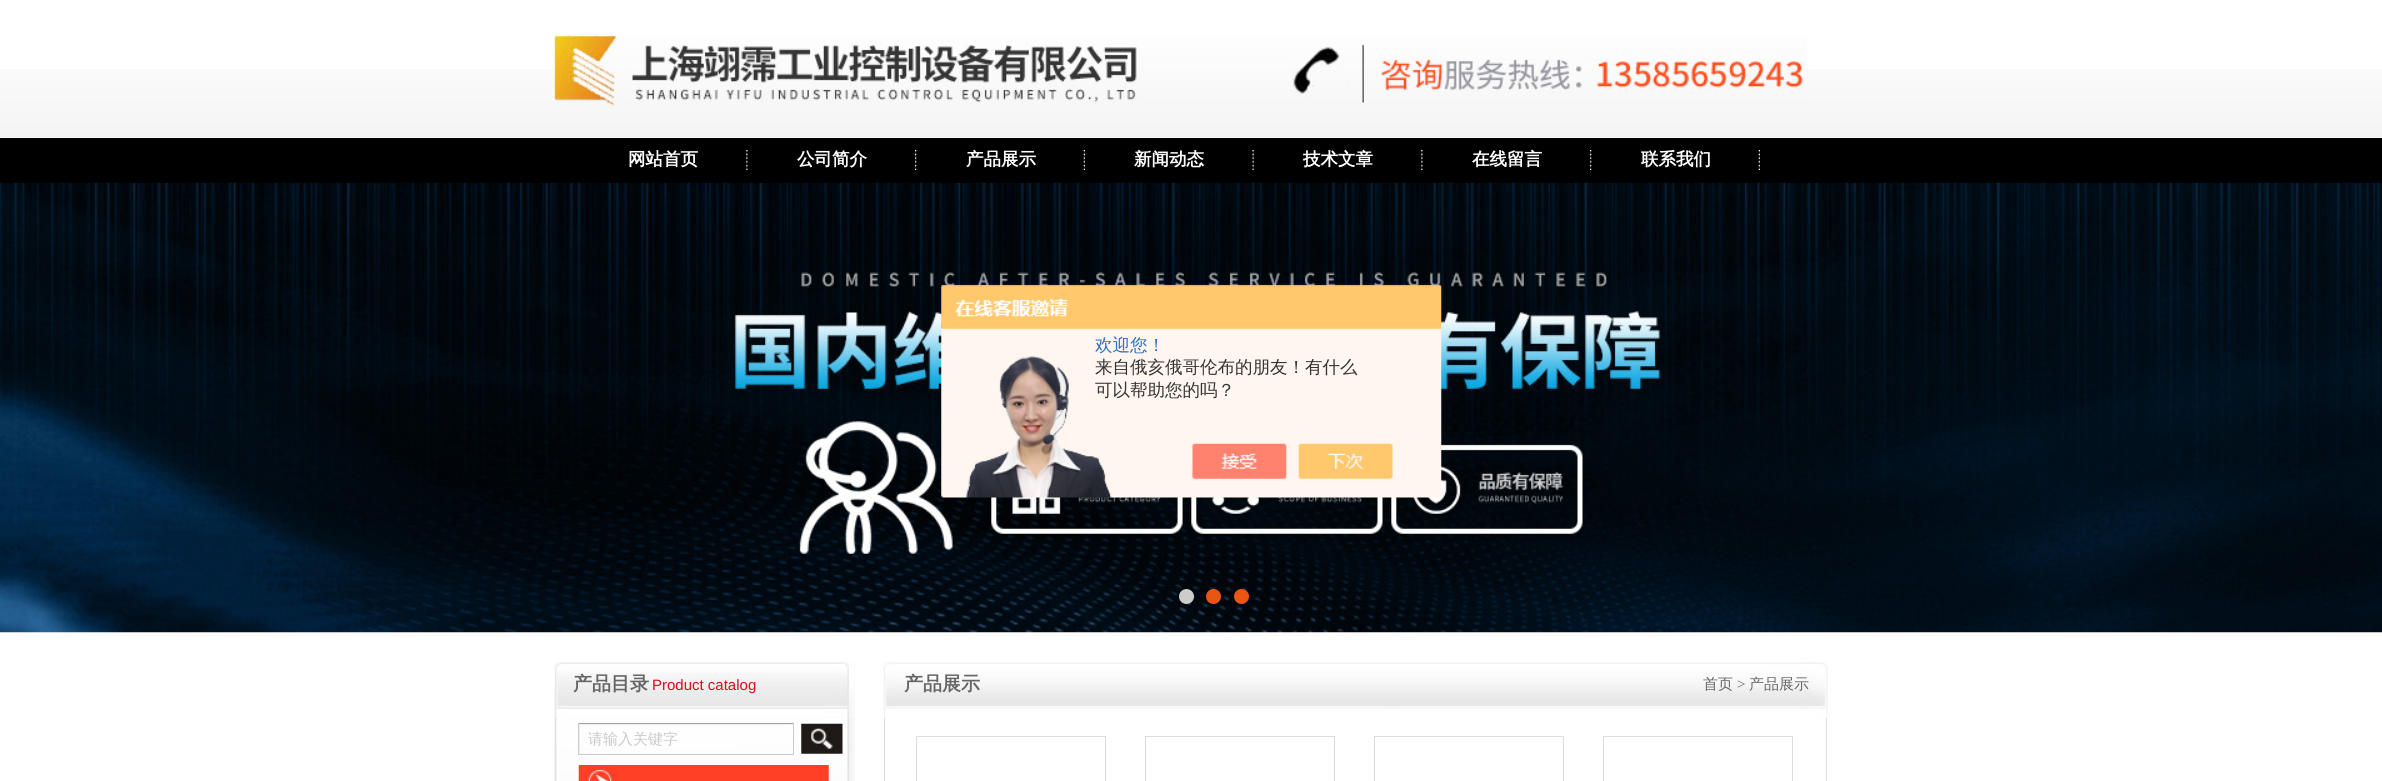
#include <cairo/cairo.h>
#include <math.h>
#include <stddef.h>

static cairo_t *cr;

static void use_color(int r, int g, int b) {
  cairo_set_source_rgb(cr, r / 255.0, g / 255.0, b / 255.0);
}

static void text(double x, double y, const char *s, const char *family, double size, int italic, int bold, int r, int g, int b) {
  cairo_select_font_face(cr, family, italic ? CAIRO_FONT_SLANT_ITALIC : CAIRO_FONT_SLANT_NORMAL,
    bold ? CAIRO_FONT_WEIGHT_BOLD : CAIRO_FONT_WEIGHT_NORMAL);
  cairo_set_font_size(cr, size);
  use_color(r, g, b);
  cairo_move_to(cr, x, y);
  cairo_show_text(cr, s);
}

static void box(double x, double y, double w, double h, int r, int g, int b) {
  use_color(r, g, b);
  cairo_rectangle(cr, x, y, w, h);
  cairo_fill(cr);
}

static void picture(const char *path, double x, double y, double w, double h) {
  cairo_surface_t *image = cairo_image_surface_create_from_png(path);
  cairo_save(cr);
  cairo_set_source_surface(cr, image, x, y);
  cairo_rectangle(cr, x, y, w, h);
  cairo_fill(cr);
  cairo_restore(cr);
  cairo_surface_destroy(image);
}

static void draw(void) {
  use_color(255, 255, 255);
  cairo_paint(cr);
  picture("img_01.png", 0, 69, 2382, 69);
  picture("img_02.png", 553, 34, 1254, 73);
  box(0, 138, 2382, 45, 0, 0, 0);
  picture("img_03.png", 746, 150, 2, 20);
  picture("img_04.png", 915, 150, 2, 20);
  picture("img_05.png", 1083, 150, 2, 20);
  picture("img_06.png", 1252, 150, 2, 20);
  picture("img_03.png", 1421, 150, 2, 20);
  picture("img_04.png", 1590, 150, 2, 20);
  picture("img_05.png", 1758, 150, 2, 20);
  picture("img_07.png", 0, 182, 2382, 451);
  use_color(204, 204, 204);
  cairo_arc(cr, 1186.5, 596.5, 7.5, 0, 2 * M_PI);
  cairo_fill(cr);
  use_color(234, 85, 20);
  cairo_arc(cr, 1213.5, 596.5, 7.5, 0, 2 * M_PI);
  cairo_fill(cr);
  cairo_arc(cr, 1241.5, 596.5, 7.5, 0, 2 * M_PI);
  cairo_fill(cr);
  picture("img_08.png", 941, 284, 501, 214);
  picture("img_09.png", 554, 662, 301, 56);
  picture("img_10.png", 554, 717, 301, 64);
  cairo_save(cr);
  cairo_rectangle(cr, 579, 724, 214, 30);
  cairo_clip(cr);
  use_color(238, 238, 238);
  cairo_set_fill_rule(cr, CAIRO_FILL_RULE_EVEN_ODD);
  cairo_new_path(cr);
  cairo_move_to(cr, 455, 600);
  cairo_line_to(cr, 916, 600);
  cairo_line_to(cr, 916, 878);
  cairo_line_to(cr, 455, 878);
  cairo_close_path(cr);
  cairo_move_to(cr, 580, 725);
  cairo_line_to(cr, 794, 725);
  cairo_line_to(cr, 794, 755);
  cairo_line_to(cr, 580, 755);
  cairo_close_path(cr);
  cairo_fill(cr);
  cairo_restore(cr);
  box(578, 723, 216, 1, 164, 164, 164);
  box(793, 723, 1, 32, 203, 203, 203);
  box(578, 754, 216, 1, 203, 203, 203);
  box(578, 723, 1, 32, 203, 203, 203);
  picture("img_11.png", 801, 723, 42, 31);
  picture("img_12.png", 578, 765, 251, 16);
  picture("img_13.png", 883, 662, 945, 56);
  box(1826, 718, 1, 63, 221, 221, 221);
  box(884, 718, 1, 63, 221, 221, 221);
  cairo_rectangle(cr, 916.5, 736.5, 189, 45);
  cairo_set_line_width(cr, 1);
  cairo_stroke(cr);
  cairo_rectangle(cr, 1145.5, 736.5, 189, 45);
  cairo_stroke(cr);
  cairo_rectangle(cr, 1374.5, 736.5, 189, 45);
  cairo_stroke(cr);
  cairo_rectangle(cr, 1603.5, 736.5, 189, 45);
  cairo_stroke(cr);
  text(628, 165, "网站首页", "WenQuanYi Zen Hei", 17.5, 0, 1, 255, 255, 255);
  text(797, 165, "公司简介", "WenQuanYi Zen Hei", 17.5, 0, 1, 255, 255, 255);
  text(966, 165, "产品展示", "WenQuanYi Zen Hei", 17.5, 0, 1, 255, 255, 255);
  text(1134, 165, "新闻动态", "WenQuanYi Zen Hei", 17.5, 0, 1, 255, 255, 255);
  text(1303, 165, "技术文章", "WenQuanYi Zen Hei", 17.5, 0, 1, 255, 255, 255);
  text(1472, 165, "在线留言", "WenQuanYi Zen Hei", 17.5, 0, 1, 255, 255, 255);
  text(1641, 165, "联系我们", "WenQuanYi Zen Hei", 17.5, 0, 1, 255, 255, 255);
  text(1095, 351, "欢迎您！", "WenQuanYi Zen Hei Medium", 17.5, 0, 0, 46, 110, 198);
  text(1095, 373, "来自俄亥俄哥伦布的朋友！有什么", "WenQuanYi Zen Hei Medium", 17.5, 0, 0, 51, 51, 51);
  text(1095, 396, "可以帮助您的吗？", "WenQuanYi Zen Hei Medium", 17.5, 0, 0, 51, 51, 51);
  text(573, 690, "产品目录", "WenQuanYi Zen Hei", 19, 0, 1, 102, 102, 102);
  text(652, 690, "Product catalog", "Liberation Sans", 15, 0, 0, 219, 10, 29);
  text(588, 744, "请输入关键字", "WenQuanYi Zen Hei Medium", 15, 0, 0, 202, 201, 201);
  text(904, 690, "产品展示", "WenQuanYi Zen Hei", 19, 0, 1, 102, 102, 102);
  text(1703, 689, "首页", "WenQuanYi Zen Hei Medium", 15, 0, 0, 102, 102, 102);
  text(1737, 689, ">", "Liberation Serif", 15, 0, 0, 102, 102, 102);
  text(1749, 689, "产品展示", "WenQuanYi Zen Hei Medium", 15, 0, 0, 102, 102, 102);
}

int main(void) {
  cairo_surface_t *surface = cairo_image_surface_create(CAIRO_FORMAT_RGB24, 2382, 781);
  cr = cairo_create(surface);
  cairo_font_options_t *options = cairo_font_options_create();
  cairo_font_options_set_hint_metrics(options, CAIRO_HINT_METRICS_OFF);
  cairo_font_options_set_hint_style(options, CAIRO_HINT_STYLE_NONE);
  cairo_set_font_options(cr, options);
  cairo_set_miter_limit(cr, 4);
  draw();
  cairo_surface_write_to_png(surface, "out.png");
  cairo_font_options_destroy(options);
  cairo_destroy(cr);
  cairo_surface_destroy(surface);
  return 0;
}
